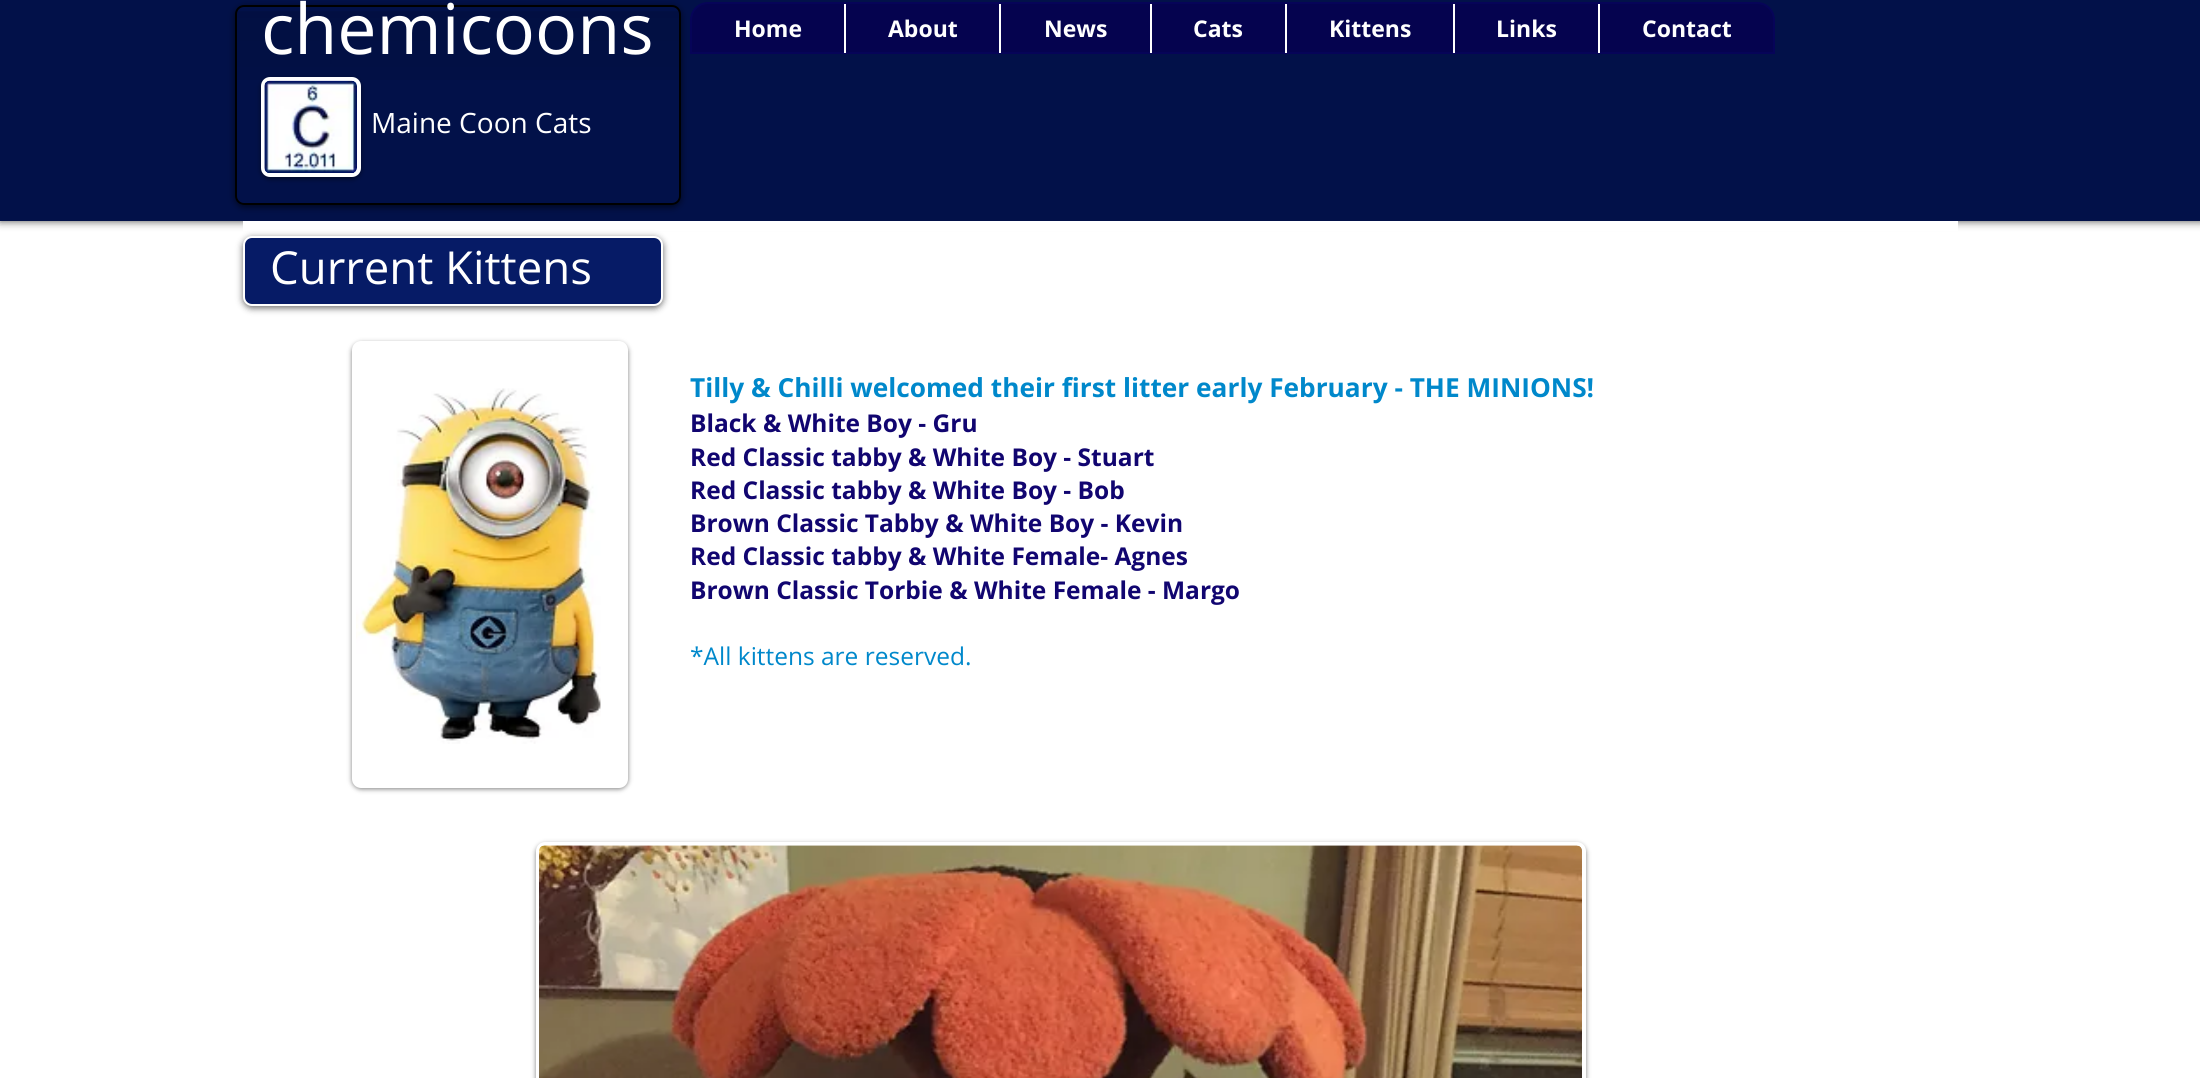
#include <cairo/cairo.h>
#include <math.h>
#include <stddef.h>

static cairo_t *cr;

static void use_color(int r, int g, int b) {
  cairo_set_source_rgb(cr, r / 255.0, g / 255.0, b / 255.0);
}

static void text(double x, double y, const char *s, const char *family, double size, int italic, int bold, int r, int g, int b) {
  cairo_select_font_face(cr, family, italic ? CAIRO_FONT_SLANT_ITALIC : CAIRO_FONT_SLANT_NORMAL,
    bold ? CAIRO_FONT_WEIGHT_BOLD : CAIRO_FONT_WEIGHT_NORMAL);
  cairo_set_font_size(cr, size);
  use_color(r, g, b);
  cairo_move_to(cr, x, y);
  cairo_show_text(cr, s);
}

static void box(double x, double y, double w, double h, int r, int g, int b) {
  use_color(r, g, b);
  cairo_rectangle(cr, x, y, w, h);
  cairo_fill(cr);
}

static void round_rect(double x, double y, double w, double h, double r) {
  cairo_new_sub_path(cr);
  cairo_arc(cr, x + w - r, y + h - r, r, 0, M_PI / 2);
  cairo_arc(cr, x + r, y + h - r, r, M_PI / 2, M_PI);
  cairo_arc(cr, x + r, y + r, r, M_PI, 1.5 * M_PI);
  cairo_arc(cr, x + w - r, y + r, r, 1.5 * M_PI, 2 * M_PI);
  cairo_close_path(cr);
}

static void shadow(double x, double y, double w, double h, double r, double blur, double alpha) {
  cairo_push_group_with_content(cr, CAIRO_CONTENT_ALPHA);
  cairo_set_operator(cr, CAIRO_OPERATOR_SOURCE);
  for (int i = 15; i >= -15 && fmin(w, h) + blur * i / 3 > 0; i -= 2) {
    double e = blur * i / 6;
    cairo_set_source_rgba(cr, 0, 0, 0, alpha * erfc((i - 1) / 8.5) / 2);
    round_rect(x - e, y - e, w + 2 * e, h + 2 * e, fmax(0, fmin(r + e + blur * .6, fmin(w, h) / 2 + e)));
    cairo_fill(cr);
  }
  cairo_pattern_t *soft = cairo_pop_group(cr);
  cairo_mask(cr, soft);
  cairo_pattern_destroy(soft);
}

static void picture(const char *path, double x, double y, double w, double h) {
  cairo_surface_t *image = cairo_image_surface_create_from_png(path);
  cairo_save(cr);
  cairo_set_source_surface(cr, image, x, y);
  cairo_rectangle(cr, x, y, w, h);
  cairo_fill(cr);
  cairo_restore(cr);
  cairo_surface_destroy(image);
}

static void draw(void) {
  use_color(255, 255, 255);
  cairo_paint(cr);
  use_color(0, 0, 0);
  shadow(0, 0, 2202, 221, 0, 4.5, 0.7);
  box(0, 0, 2200, 221, 2, 17, 73);
  use_color(5, 3, 79);
  cairo_new_path(cr);
  cairo_move_to(cr, 708, 3);
  cairo_line_to(cr, 1757, 3);
  cairo_curve_to(cr, 1766.5, 3, 1774, 10.5, 1774, 20);
  cairo_line_to(cr, 1774, 53);
  cairo_line_to(cr, 691, 53);
  cairo_line_to(cr, 691, 20);
  cairo_curve_to(cr, 691, 10.5, 698.5, 3, 708, 3);
  cairo_close_path(cr);
  cairo_fill_preserve(cr);
  use_color(6, 4, 88);
  cairo_stroke(cr);
  use_color(0, 0, 0);
  shadow(235, 7, 446, 200, 9, 3.5, 0.6);
  use_color(2, 17, 73);
  round_rect(235, 5, 446, 200, 9);
  cairo_fill(cr);
  picture("img_01.png", 235, 11, 444, 69);
  round_rect(236, 6, 444, 198, 8);
  use_color(0, 0, 0);
  cairo_stroke(cr);
  use_color(0, 0, 0);
  shadow(261, 79, 100, 100, 9, 2.5, 0.5);
  use_color(255, 255, 255);
  round_rect(263, 79, 96, 96, 7);
  cairo_fill_preserve(cr);
  cairo_set_line_width(cr, 4);
  cairo_stroke(cr);
  picture("img_02.png", 264, 80, 93, 93);
  box(844, 4, 2, 49, 255, 255, 255);
  box(999, 4, 2, 49, 255, 255, 255);
  box(1150, 4, 2, 49, 255, 255, 255);
  box(1285, 4, 2, 49, 255, 255, 255);
  box(1453, 4, 2, 49, 255, 255, 255);
  box(1598, 4, 2, 49, 255, 255, 255);
  box(243, 221, 1715, 10, 255, 255, 255);
  use_color(0, 0, 0);
  shadow(243, 238, 420, 70, 9, 3.5, 0.6);
  use_color(6, 27, 102);
  round_rect(244, 237, 418, 68, 8);
  cairo_fill_preserve(cr);
  use_color(255, 255, 255);
  cairo_set_line_width(cr, 2);
  cairo_stroke(cr);
  use_color(0, 0, 0);
  shadow(352, 343, 276, 446, 9, 2.5, 0.5);
  use_color(255, 255, 255);
  round_rect(354, 343, 272, 443, 7);
  cairo_fill_preserve(cr);
  cairo_set_line_width(cr, 4);
  cairo_stroke(cr);
  picture("img_03.png", 356, 388, 245, 356);
  use_color(0, 0, 0);
  shadow(536, 844, 1050, 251, 9, 2.5, 0.5);
  round_rect(538, 844, 1046, 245, 7);
  use_color(255, 255, 255);
  cairo_stroke(cr);
  picture("img_04.png", 539, 845, 1043, 233);
  text(261, 54, "chemicoons", "Open Sans", 70, 0, 0, 255, 255, 255);
  text(371, 133, "Maine Coon Cats", "Open Sans", 28, 0, 0, 255, 255, 255);
  text(734, 37, "Home", "Open Sans", 23, 0, 1, 255, 255, 255);
  text(888, 37, "About", "Open Sans", 23, 0, 1, 255, 255, 255);
  text(1044, 37, "News", "Open Sans", 23, 0, 1, 255, 255, 255);
  text(1193, 37, "Cats", "Open Sans", 23, 0, 1, 255, 255, 255);
  text(1329, 37, "Kittens", "Open Sans", 23, 0, 1, 255, 255, 255);
  text(1496, 37, "Links", "Open Sans", 23, 0, 1, 255, 255, 255);
  text(1642, 37, "Contact", "Open Sans", 23, 0, 1, 255, 255, 255);
  text(270, 284, "Current Kittens", "Open Sans", 45.5, 0, 0, 255, 255, 255);
  text(690, 397, "Tilly & Chilli welcomed their first litter early February - THE MINIONS!", "Open Sans", 26.25, 0, 1, 0, 136, 203);
  text(690, 432, "Black & White Boy - Gru", "Open Sans", 24.5, 0, 1, 17, 5, 112);
  text(690, 466, "Red Classic tabby & White Boy - Stuart", "Open Sans", 24.5, 0, 1, 17, 5, 112);
  text(690, 499, "Red Classic tabby & White Boy - Bob", "Open Sans", 24.5, 0, 1, 17, 5, 112);
  text(690, 532, "Brown Classic Tabby & White Boy - Kevin", "Open Sans", 24.5, 0, 1, 17, 5, 112);
  text(690, 565, "Red Classic tabby & White Female- Agnes", "Open Sans", 24.5, 0, 1, 17, 5, 112);
  text(690, 599, "Brown Classic Torbie & White Female - Margo", "Open Sans", 24.5, 0, 1, 17, 5, 112);
  text(690, 665, "*All kittens are reserved.", "Open Sans", 24.5, 0, 0, 0, 136, 203);
}

int main(void) {
  cairo_surface_t *surface = cairo_image_surface_create(CAIRO_FORMAT_RGB24, 2200, 1078);
  cr = cairo_create(surface);
  cairo_font_options_t *options = cairo_font_options_create();
  cairo_font_options_set_hint_metrics(options, CAIRO_HINT_METRICS_OFF);
  cairo_font_options_set_hint_style(options, CAIRO_HINT_STYLE_NONE);
  cairo_set_font_options(cr, options);
  cairo_set_miter_limit(cr, 4);
  draw();
  cairo_surface_write_to_png(surface, "out.png");
  cairo_font_options_destroy(options);
  cairo_destroy(cr);
  cairo_surface_destroy(surface);
  return 0;
}
